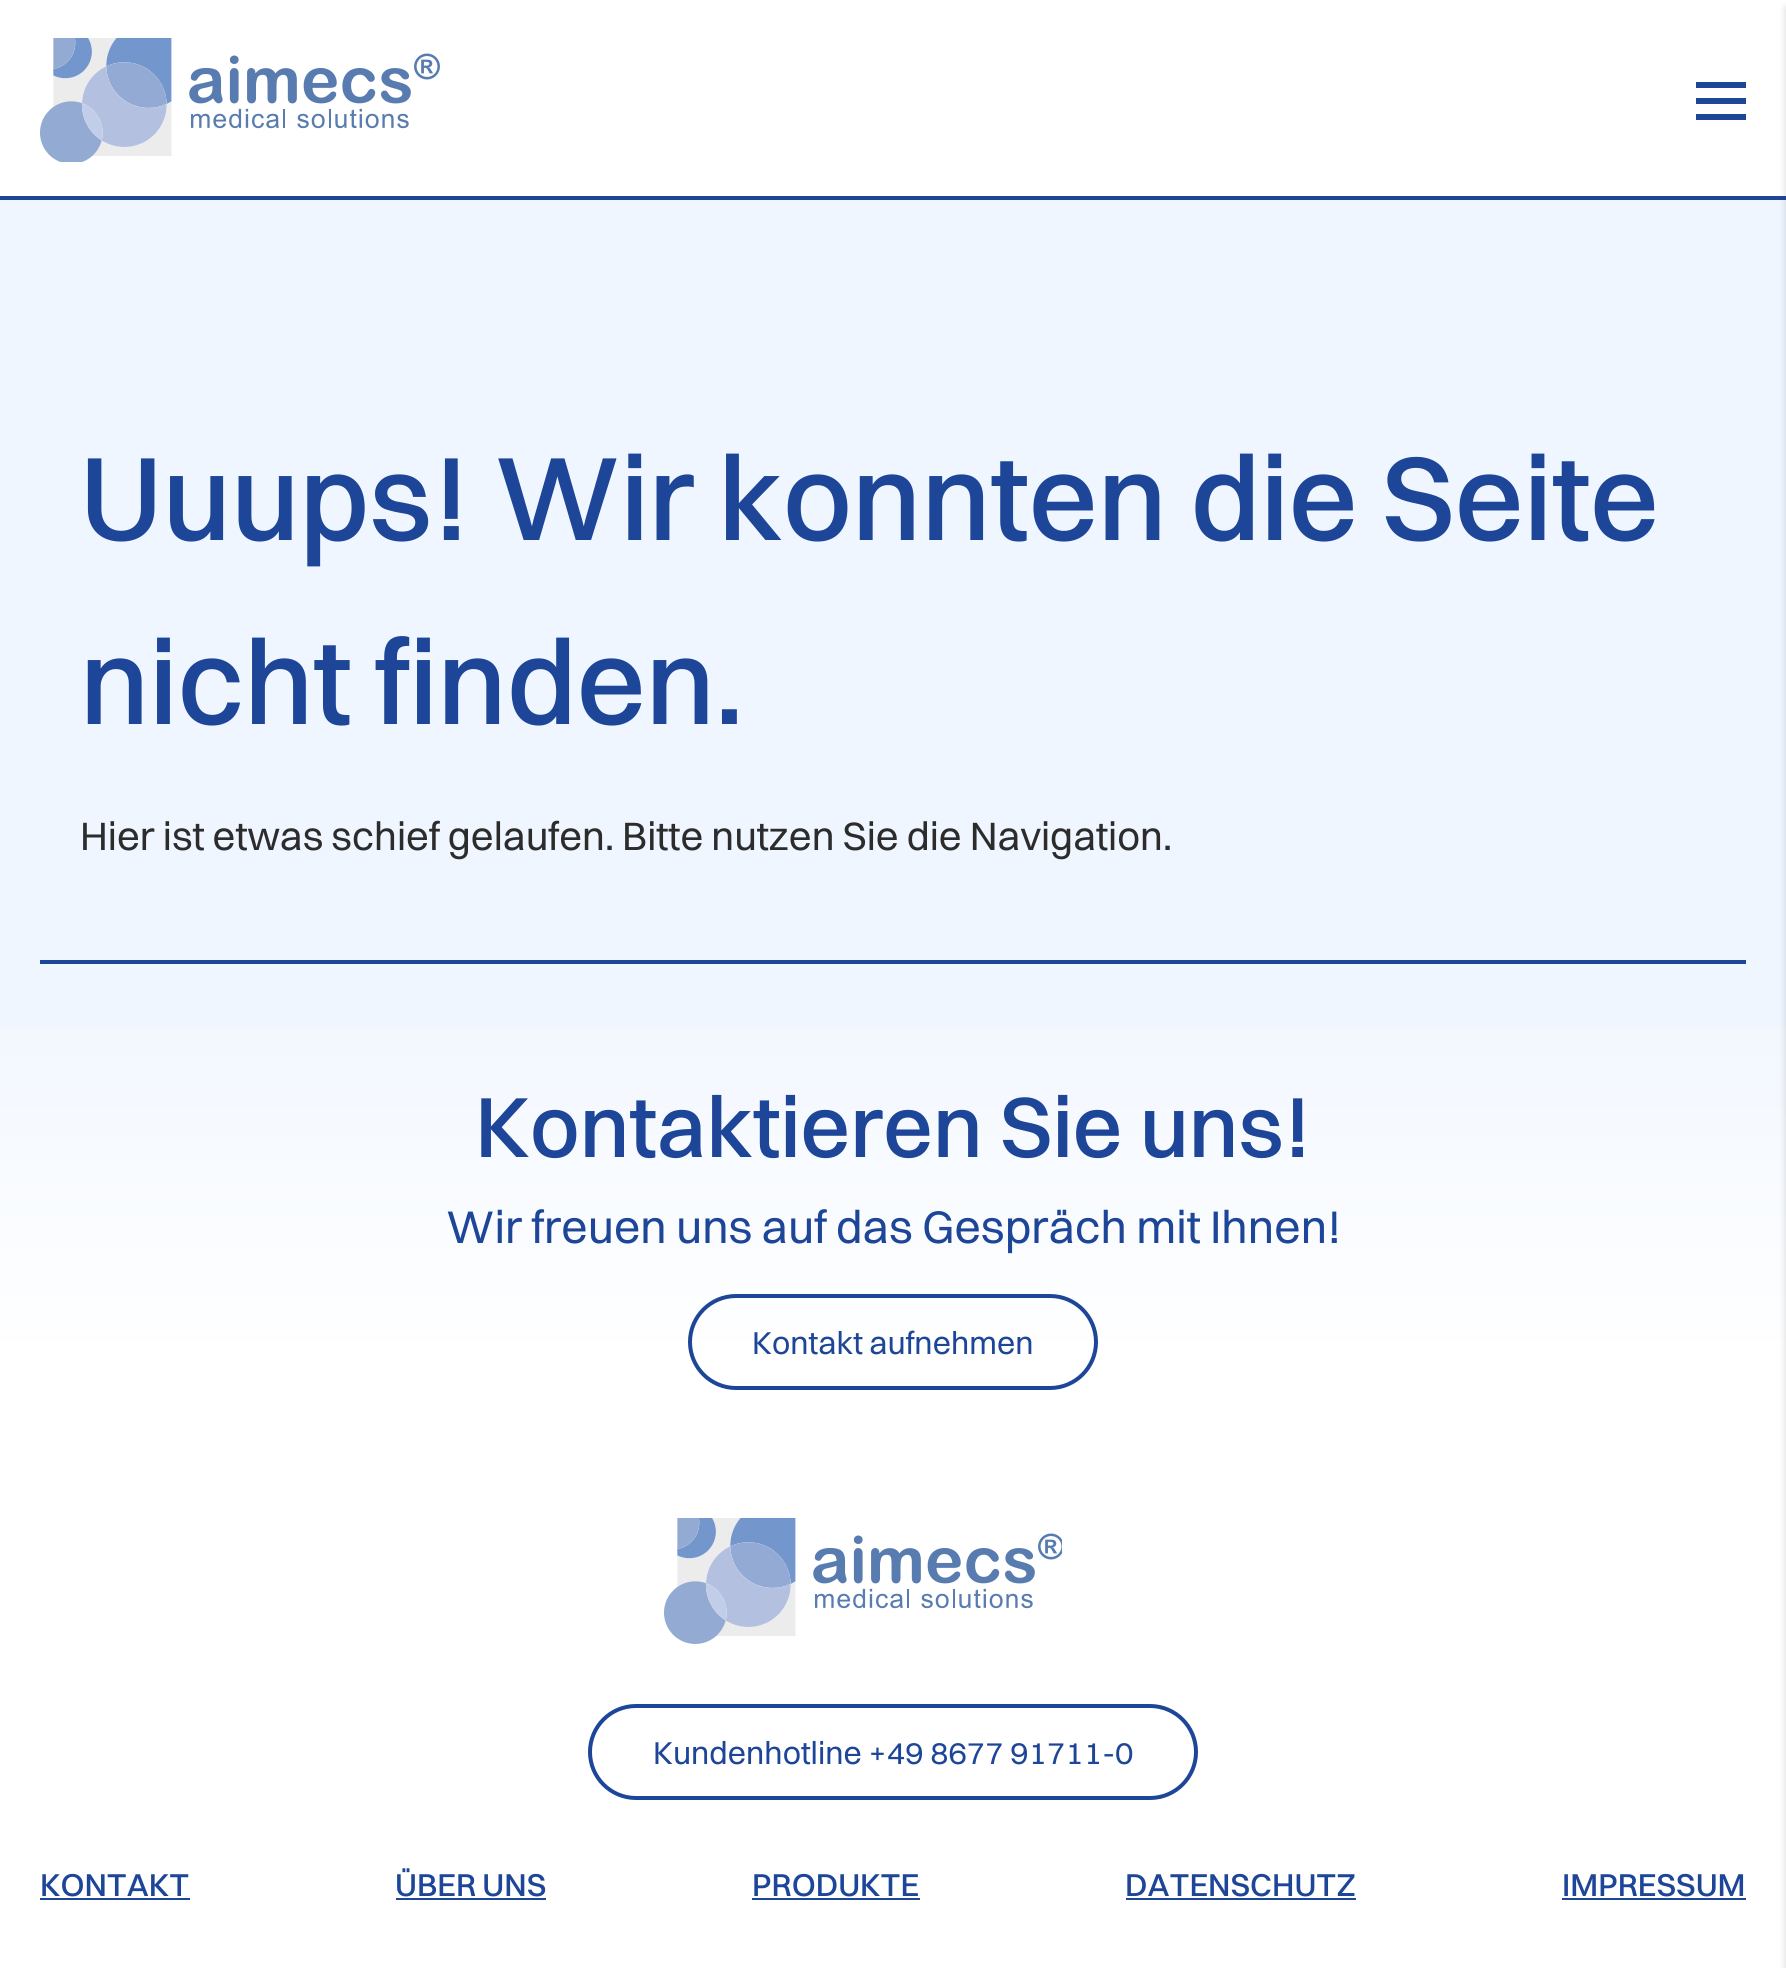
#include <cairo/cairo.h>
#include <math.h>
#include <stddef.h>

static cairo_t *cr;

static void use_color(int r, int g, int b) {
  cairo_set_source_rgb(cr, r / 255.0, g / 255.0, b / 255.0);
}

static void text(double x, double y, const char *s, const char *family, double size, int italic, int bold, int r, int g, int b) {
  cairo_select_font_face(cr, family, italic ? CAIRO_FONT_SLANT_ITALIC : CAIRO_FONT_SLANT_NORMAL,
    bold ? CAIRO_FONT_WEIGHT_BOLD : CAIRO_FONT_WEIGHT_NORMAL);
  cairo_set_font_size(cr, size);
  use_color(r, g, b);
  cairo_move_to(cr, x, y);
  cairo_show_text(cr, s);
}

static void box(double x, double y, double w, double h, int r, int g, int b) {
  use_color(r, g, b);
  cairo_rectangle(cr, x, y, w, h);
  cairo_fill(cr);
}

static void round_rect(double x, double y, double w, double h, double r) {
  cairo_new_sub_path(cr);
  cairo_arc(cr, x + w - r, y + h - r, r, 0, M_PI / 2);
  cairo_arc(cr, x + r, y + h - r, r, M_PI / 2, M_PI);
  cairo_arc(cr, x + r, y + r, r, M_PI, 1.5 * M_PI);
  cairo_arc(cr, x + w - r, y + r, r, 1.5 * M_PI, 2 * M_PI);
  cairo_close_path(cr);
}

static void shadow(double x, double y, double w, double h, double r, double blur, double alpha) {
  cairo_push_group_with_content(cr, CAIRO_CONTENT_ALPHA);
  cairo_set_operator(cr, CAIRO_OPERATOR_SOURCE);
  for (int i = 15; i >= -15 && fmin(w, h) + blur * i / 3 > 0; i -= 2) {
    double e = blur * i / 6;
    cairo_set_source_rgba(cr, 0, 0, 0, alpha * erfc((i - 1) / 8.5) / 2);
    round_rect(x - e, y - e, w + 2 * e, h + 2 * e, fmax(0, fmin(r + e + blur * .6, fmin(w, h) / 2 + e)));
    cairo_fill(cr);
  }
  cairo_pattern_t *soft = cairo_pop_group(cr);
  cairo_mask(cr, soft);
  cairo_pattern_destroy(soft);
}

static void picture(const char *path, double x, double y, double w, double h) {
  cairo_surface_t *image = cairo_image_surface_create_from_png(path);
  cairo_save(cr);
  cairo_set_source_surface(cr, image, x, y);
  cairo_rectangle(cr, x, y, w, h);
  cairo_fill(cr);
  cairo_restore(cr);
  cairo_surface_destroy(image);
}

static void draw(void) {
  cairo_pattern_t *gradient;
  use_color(240, 246, 255);
  cairo_paint(cr);
  box(0, 0, 1786, 196, 255, 255, 255);
  box(0, 196, 1786, 4, 29, 69, 152);
  picture("img_01.png", 40, 38, 400, 124);
  box(1696, 82, 50, 6, 29, 69, 152);
  box(1696, 98, 50, 6, 29, 69, 152);
  box(1696, 114, 50, 6, 29, 69, 152);
  gradient = cairo_pattern_create_linear(893, 1968, 893, 960);
  cairo_pattern_add_color_stop_rgba(gradient, 0.6, 1, 1, 1, 1);
  cairo_pattern_add_color_stop_rgba(gradient, 1, 0.941, 0.965, 1, 1);
  cairo_set_source(cr, gradient);
  cairo_pattern_destroy(gradient);
  cairo_rectangle(cr, 0, 1027, 1786, 941);
  cairo_fill(cr);
  use_color(0, 0, 0);
  shadow(1786, 8, 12, 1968, 0, 4, 0.16);
  box(40, 960, 1706, 4, 29, 69, 152);
  round_rect(690, 1296, 406, 92, 46);
  cairo_set_line_width(cr, 4);
  cairo_stroke(cr);
  picture("img_02.png", 664, 1518, 398, 126);
  round_rect(590, 1706, 606, 92, 46);
  cairo_stroke(cr);
  box(40, 1898, 150, 2, 29, 69, 152);
  box(396, 1898, 150, 2, 29, 69, 152);
  box(752, 1898, 168, 2, 29, 69, 152);
  box(1126, 1898, 230, 2, 29, 69, 152);
  box(1562, 1898, 184, 2, 29, 69, 152);
  text(80, 540, "Uuups! Wir konnten die Seite", "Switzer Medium", 120, 0, 0, 29, 69, 152);
  text(80, 724, "nicht finden.", "Switzer Medium", 120, 0, 0, 29, 69, 152);
  text(80, 850, "Hier ist etwas schief gelaufen. Bitte nutzen Sie die Navigation.", "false", 40, 0, 0, 44, 44, 44);
  text(475, 1157, "Kontaktieren Sie uns!", "Switzer Medium", 86.25, 0, 0, 29, 69, 152);
  text(446, 1243, "Wir freuen uns auf das Gespräch mit Ihnen!", "false", 46.2, 0, 0, 29, 69, 152);
  text(752, 1354, "Kontakt aufnehmen", "false", 32, 0, 0, 29, 69, 152);
  text(653, 1764, "Kundenhotline +49 8677 91711-0", "false", 32, 0, 0, 29, 69, 152);
  text(40, 1896, "KONTAKT", "Switzer Medium", 32, 0, 0, 29, 69, 152);
  text(395, 1896, "ÜBER UNS", "Switzer Medium", 32, 0, 0, 29, 69, 152);
  text(752, 1896, "PRODUKTE", "Switzer Medium", 32, 0, 0, 29, 69, 152);
  text(1125, 1896, "DATENSCHUTZ", "Switzer Medium", 32, 0, 0, 29, 69, 152);
  text(1562, 1896, "IMPRESSUM", "Switzer Medium", 32, 0, 0, 29, 69, 152);
}

int main(void) {
  cairo_surface_t *surface = cairo_image_surface_create(CAIRO_FORMAT_RGB24, 1786, 1968);
  cr = cairo_create(surface);
  cairo_font_options_t *options = cairo_font_options_create();
  cairo_font_options_set_hint_metrics(options, CAIRO_HINT_METRICS_OFF);
  cairo_font_options_set_hint_style(options, CAIRO_HINT_STYLE_NONE);
  cairo_set_font_options(cr, options);
  cairo_set_miter_limit(cr, 4);
  draw();
  cairo_surface_write_to_png(surface, "out.png");
  cairo_font_options_destroy(options);
  cairo_destroy(cr);
  cairo_surface_destroy(surface);
  return 0;
}
